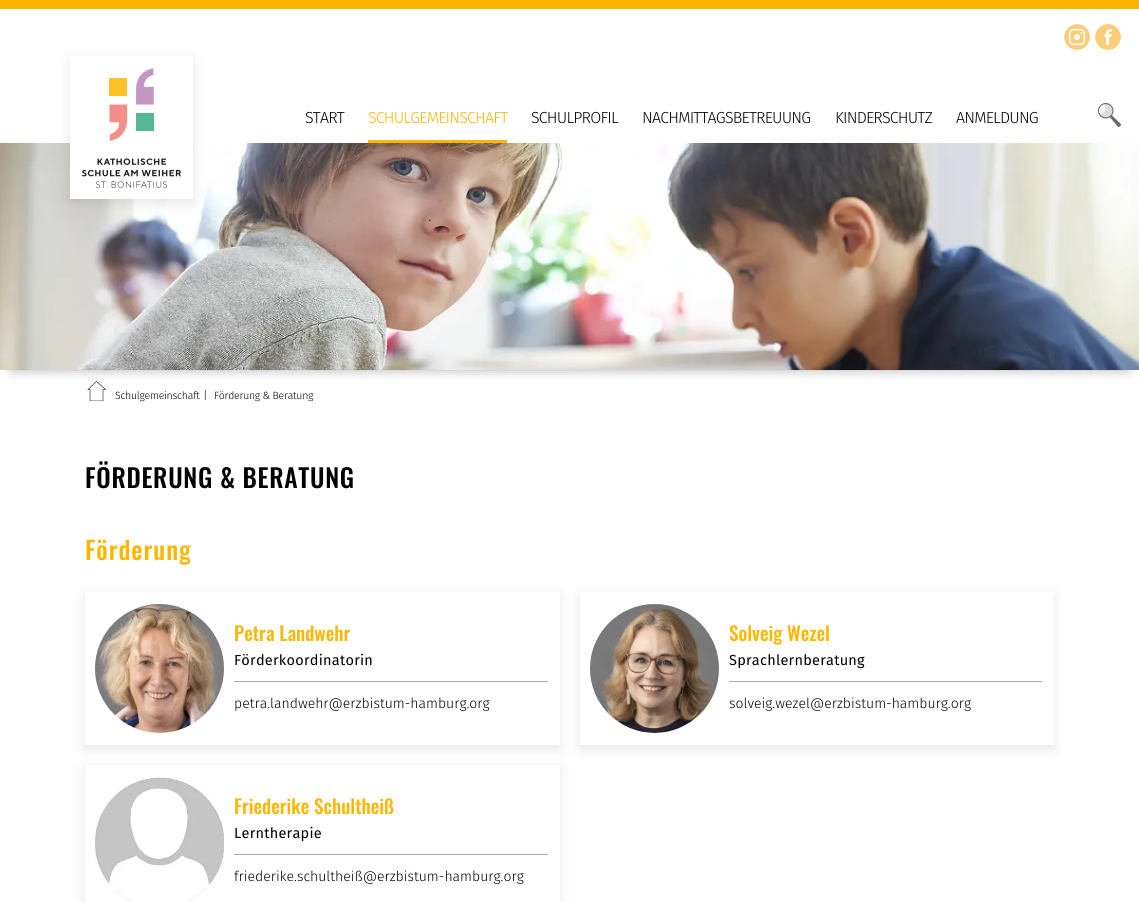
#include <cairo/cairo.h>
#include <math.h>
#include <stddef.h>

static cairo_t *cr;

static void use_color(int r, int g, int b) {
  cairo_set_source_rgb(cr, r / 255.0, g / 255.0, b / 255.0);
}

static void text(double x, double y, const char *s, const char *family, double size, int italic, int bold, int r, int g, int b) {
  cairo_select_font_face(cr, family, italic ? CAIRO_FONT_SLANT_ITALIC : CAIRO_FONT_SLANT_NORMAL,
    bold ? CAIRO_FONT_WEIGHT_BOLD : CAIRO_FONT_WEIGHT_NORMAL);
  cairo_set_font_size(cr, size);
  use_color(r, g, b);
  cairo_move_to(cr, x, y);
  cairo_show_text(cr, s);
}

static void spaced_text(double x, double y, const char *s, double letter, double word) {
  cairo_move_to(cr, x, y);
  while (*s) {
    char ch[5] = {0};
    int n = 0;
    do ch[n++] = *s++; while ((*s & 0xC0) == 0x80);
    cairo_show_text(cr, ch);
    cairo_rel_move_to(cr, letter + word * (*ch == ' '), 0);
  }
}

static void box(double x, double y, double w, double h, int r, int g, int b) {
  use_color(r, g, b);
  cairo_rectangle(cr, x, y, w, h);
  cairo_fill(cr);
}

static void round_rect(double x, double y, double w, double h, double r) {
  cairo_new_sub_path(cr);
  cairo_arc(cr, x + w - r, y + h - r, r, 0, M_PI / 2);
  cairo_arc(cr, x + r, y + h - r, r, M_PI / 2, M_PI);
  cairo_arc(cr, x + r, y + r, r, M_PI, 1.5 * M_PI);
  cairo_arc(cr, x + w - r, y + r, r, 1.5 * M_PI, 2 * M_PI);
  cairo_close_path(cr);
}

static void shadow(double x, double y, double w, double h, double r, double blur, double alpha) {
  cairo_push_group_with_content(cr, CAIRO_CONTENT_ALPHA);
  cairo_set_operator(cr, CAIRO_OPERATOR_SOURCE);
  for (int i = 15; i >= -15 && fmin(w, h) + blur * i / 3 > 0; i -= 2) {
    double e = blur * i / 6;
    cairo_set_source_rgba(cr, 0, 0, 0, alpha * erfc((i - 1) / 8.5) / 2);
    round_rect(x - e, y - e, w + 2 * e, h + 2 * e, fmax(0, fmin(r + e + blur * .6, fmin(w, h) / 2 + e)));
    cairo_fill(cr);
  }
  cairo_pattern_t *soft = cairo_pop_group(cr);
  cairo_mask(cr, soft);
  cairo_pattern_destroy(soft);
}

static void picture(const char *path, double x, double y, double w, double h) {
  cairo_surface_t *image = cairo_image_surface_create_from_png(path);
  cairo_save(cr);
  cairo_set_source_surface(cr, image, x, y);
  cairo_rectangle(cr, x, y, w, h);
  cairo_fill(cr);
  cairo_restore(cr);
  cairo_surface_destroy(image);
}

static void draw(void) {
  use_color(255, 255, 255);
  cairo_paint(cr);
  box(0, 0, 1139, 9, 255, 182, 0);
  picture("img_01.png", 1064, 24, 26, 26);
  picture("img_02.png", 1095, 24, 26, 26);
  cairo_save(cr);
  cairo_rectangle(cr, 87, 381, 19, 20);
  cairo_clip(cr);
  cairo_new_path(cr);
  cairo_move_to(cr, 96.5, 381.5);
  cairo_line_to(cr, 88, 389.5);
  cairo_line_to(cr, 90, 389.5);
  cairo_line_to(cr, 90, 401);
  cairo_line_to(cr, 103, 401);
  cairo_line_to(cr, 103, 389.5);
  cairo_line_to(cr, 105.5, 389.5);
  cairo_close_path(cr);
  use_color(24, 23, 22);
  cairo_set_line_width(cr, 0.6);
  cairo_set_line_cap(cr, CAIRO_LINE_CAP_ROUND);
  cairo_stroke(cr);
  cairo_restore(cr);
  use_color(0, 0, 0);
  shadow(12, 167, 1115, 203, 0, 6, 0.3);
  picture("img_05.png", 0, 143, 1139, 227);
  shadow(70, 60, 123, 143, 0, 6, 0.1);
  box(70, 56, 123, 143, 255, 255, 255);
  picture("img_03.png", 82, 68, 99, 120);
  box(368, 140, 139, 3, 255, 182, 0);
  picture("img_04.png", 1098, 103, 23, 24);
  cairo_save(cr);
  cairo_set_fill_rule(cr, CAIRO_FILL_RULE_EVEN_ODD);
  cairo_new_path(cr);
  cairo_move_to(cr, 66, 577);
  cairo_line_to(cr, 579, 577);
  cairo_line_to(cr, 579, 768);
  cairo_line_to(cr, 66, 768);
  cairo_close_path(cr);
  cairo_move_to(cr, 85, 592);
  cairo_line_to(cr, 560, 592);
  cairo_line_to(cr, 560, 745);
  cairo_line_to(cr, 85, 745);
  cairo_close_path(cr);
  cairo_clip(cr);
  use_color(0, 0, 0);
  shadow(85, 596, 475, 153, 0, 6, 0.1);
  cairo_restore(cr);
  picture("img_06.png", 95, 604, 129, 129);
  box(234, 681, 314, 1, 173, 173, 173);
  cairo_save(cr);
  cairo_set_fill_rule(cr, CAIRO_FILL_RULE_EVEN_ODD);
  cairo_new_path(cr);
  cairo_move_to(cr, 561, 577);
  cairo_line_to(cr, 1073, 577);
  cairo_line_to(cr, 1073, 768);
  cairo_line_to(cr, 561, 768);
  cairo_close_path(cr);
  cairo_move_to(cr, 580, 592);
  cairo_line_to(cr, 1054, 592);
  cairo_line_to(cr, 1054, 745);
  cairo_line_to(cr, 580, 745);
  cairo_close_path(cr);
  cairo_clip(cr);
  use_color(0, 0, 0);
  shadow(580, 596, 474, 153, 0, 6, 0.1);
  cairo_restore(cr);
  picture("img_07.png", 590, 604, 129, 129);
  box(729, 681, 313, 1, 173, 173, 173);
  cairo_save(cr);
  cairo_set_fill_rule(cr, CAIRO_FILL_RULE_EVEN_ODD);
  cairo_new_path(cr);
  cairo_move_to(cr, 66, 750);
  cairo_line_to(cr, 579, 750);
  cairo_line_to(cr, 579, 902);
  cairo_line_to(cr, 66, 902);
  cairo_close_path(cr);
  cairo_move_to(cr, 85, 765);
  cairo_line_to(cr, 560, 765);
  cairo_line_to(cr, 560, 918);
  cairo_line_to(cr, 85, 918);
  cairo_close_path(cr);
  cairo_clip(cr);
  use_color(0, 0, 0);
  shadow(85, 769, 475, 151, 0, 6, 0.1);
  cairo_restore(cr);
  picture("img_08.png", 95, 777, 129, 125);
  box(234, 854, 314, 1, 173, 173, 173);
  cairo_select_font_face(cr, "Fira Sans Light", CAIRO_FONT_SLANT_NORMAL, CAIRO_FONT_WEIGHT_NORMAL);
  cairo_set_font_size(cr, 16);
  use_color(0, 0, 0);
  spaced_text(305, 123, "START", -0.8, 0);
  use_color(255, 182, 0);
  spaced_text(368, 123, "SCHULGEMEINSCHAFT", -0.8, 0);
  use_color(0, 0, 0);
  spaced_text(531, 123, "SCHULPROFIL", -0.8, 0);
  spaced_text(642, 123, "NACHMITTAGSBETREUUNG", -0.8, 0);
  spaced_text(835, 123, "KINDERSCHUTZ", -0.8, 0);
  spaced_text(956, 123, "ANMELDUNG", -0.8, 0);
  cairo_set_font_size(cr, 10.5);
  spaced_text(115, 399, "Schulgemeinschaft", -0.25, 0);
  cairo_set_font_size(cr, 11);
  spaced_text(203, 399, "|", 0.25, 0);
  cairo_set_font_size(cr, 10.5);
  spaced_text(214, 399, "Förderung & Beratung", -0.25, 0);
  cairo_select_font_face(cr, "Oswald Medium", CAIRO_FONT_SLANT_NORMAL, CAIRO_FONT_WEIGHT_NORMAL);
  cairo_set_font_size(cr, 25.6);
  spaced_text(85, 488, "FÖRDERUNG & BERATUNG", 0.7, 0);
  cairo_set_font_size(cr, 25);
  use_color(255, 182, 0);
  spaced_text(85, 560, "Förderung", 1, 0);
  text(234, 641, "Petra Landwehr", "Oswald Medium", 19.25, 0, 0, 255, 182, 0);
  cairo_select_font_face(cr, "Fira Sans", CAIRO_FONT_SLANT_NORMAL, CAIRO_FONT_WEIGHT_NORMAL);
  cairo_set_font_size(cr, 14.5);
  use_color(0, 0, 0);
  spaced_text(234, 665, "Förderkoordinatorin", 0.25, 0);
  text(234, 708, "petra.landwehr@erzbistum-hamburg.org", "Fira Sans Light", 14, 0, 0, 0, 0, 0);
  text(729, 641, "Solveig Wezel", "Oswald Medium", 19.25, 0, 0, 255, 182, 0);
  cairo_select_font_face(cr, "Fira Sans", CAIRO_FONT_SLANT_NORMAL, CAIRO_FONT_WEIGHT_NORMAL);
  cairo_set_font_size(cr, 14.5);
  use_color(0, 0, 0);
  spaced_text(729, 665, "Sprachlernberatung", 0.25, 0);
  text(729, 708, "solveig.wezel@erzbistum-hamburg.org", "Fira Sans Light", 14, 0, 0, 0, 0, 0);
  text(234, 814, "Friederike Schultheiß", "Oswald Medium", 19.25, 0, 0, 255, 182, 0);
  cairo_select_font_face(cr, "Fira Sans", CAIRO_FONT_SLANT_NORMAL, CAIRO_FONT_WEIGHT_NORMAL);
  cairo_set_font_size(cr, 14.5);
  use_color(0, 0, 0);
  spaced_text(234, 838, "Lerntherapie", 0.25, 0);
  text(234, 881, "friederike.schultheiß@erzbistum-hamburg.org", "Fira Sans Light", 14, 0, 0, 0, 0, 0);
}

int main(void) {
  cairo_surface_t *surface = cairo_image_surface_create(CAIRO_FORMAT_RGB24, 1139, 902);
  cr = cairo_create(surface);
  cairo_font_options_t *options = cairo_font_options_create();
  cairo_font_options_set_hint_metrics(options, CAIRO_HINT_METRICS_OFF);
  cairo_font_options_set_hint_style(options, CAIRO_HINT_STYLE_NONE);
  cairo_set_font_options(cr, options);
  cairo_set_miter_limit(cr, 4);
  draw();
  cairo_surface_write_to_png(surface, "out.png");
  cairo_font_options_destroy(options);
  cairo_destroy(cr);
  cairo_surface_destroy(surface);
  return 0;
}
